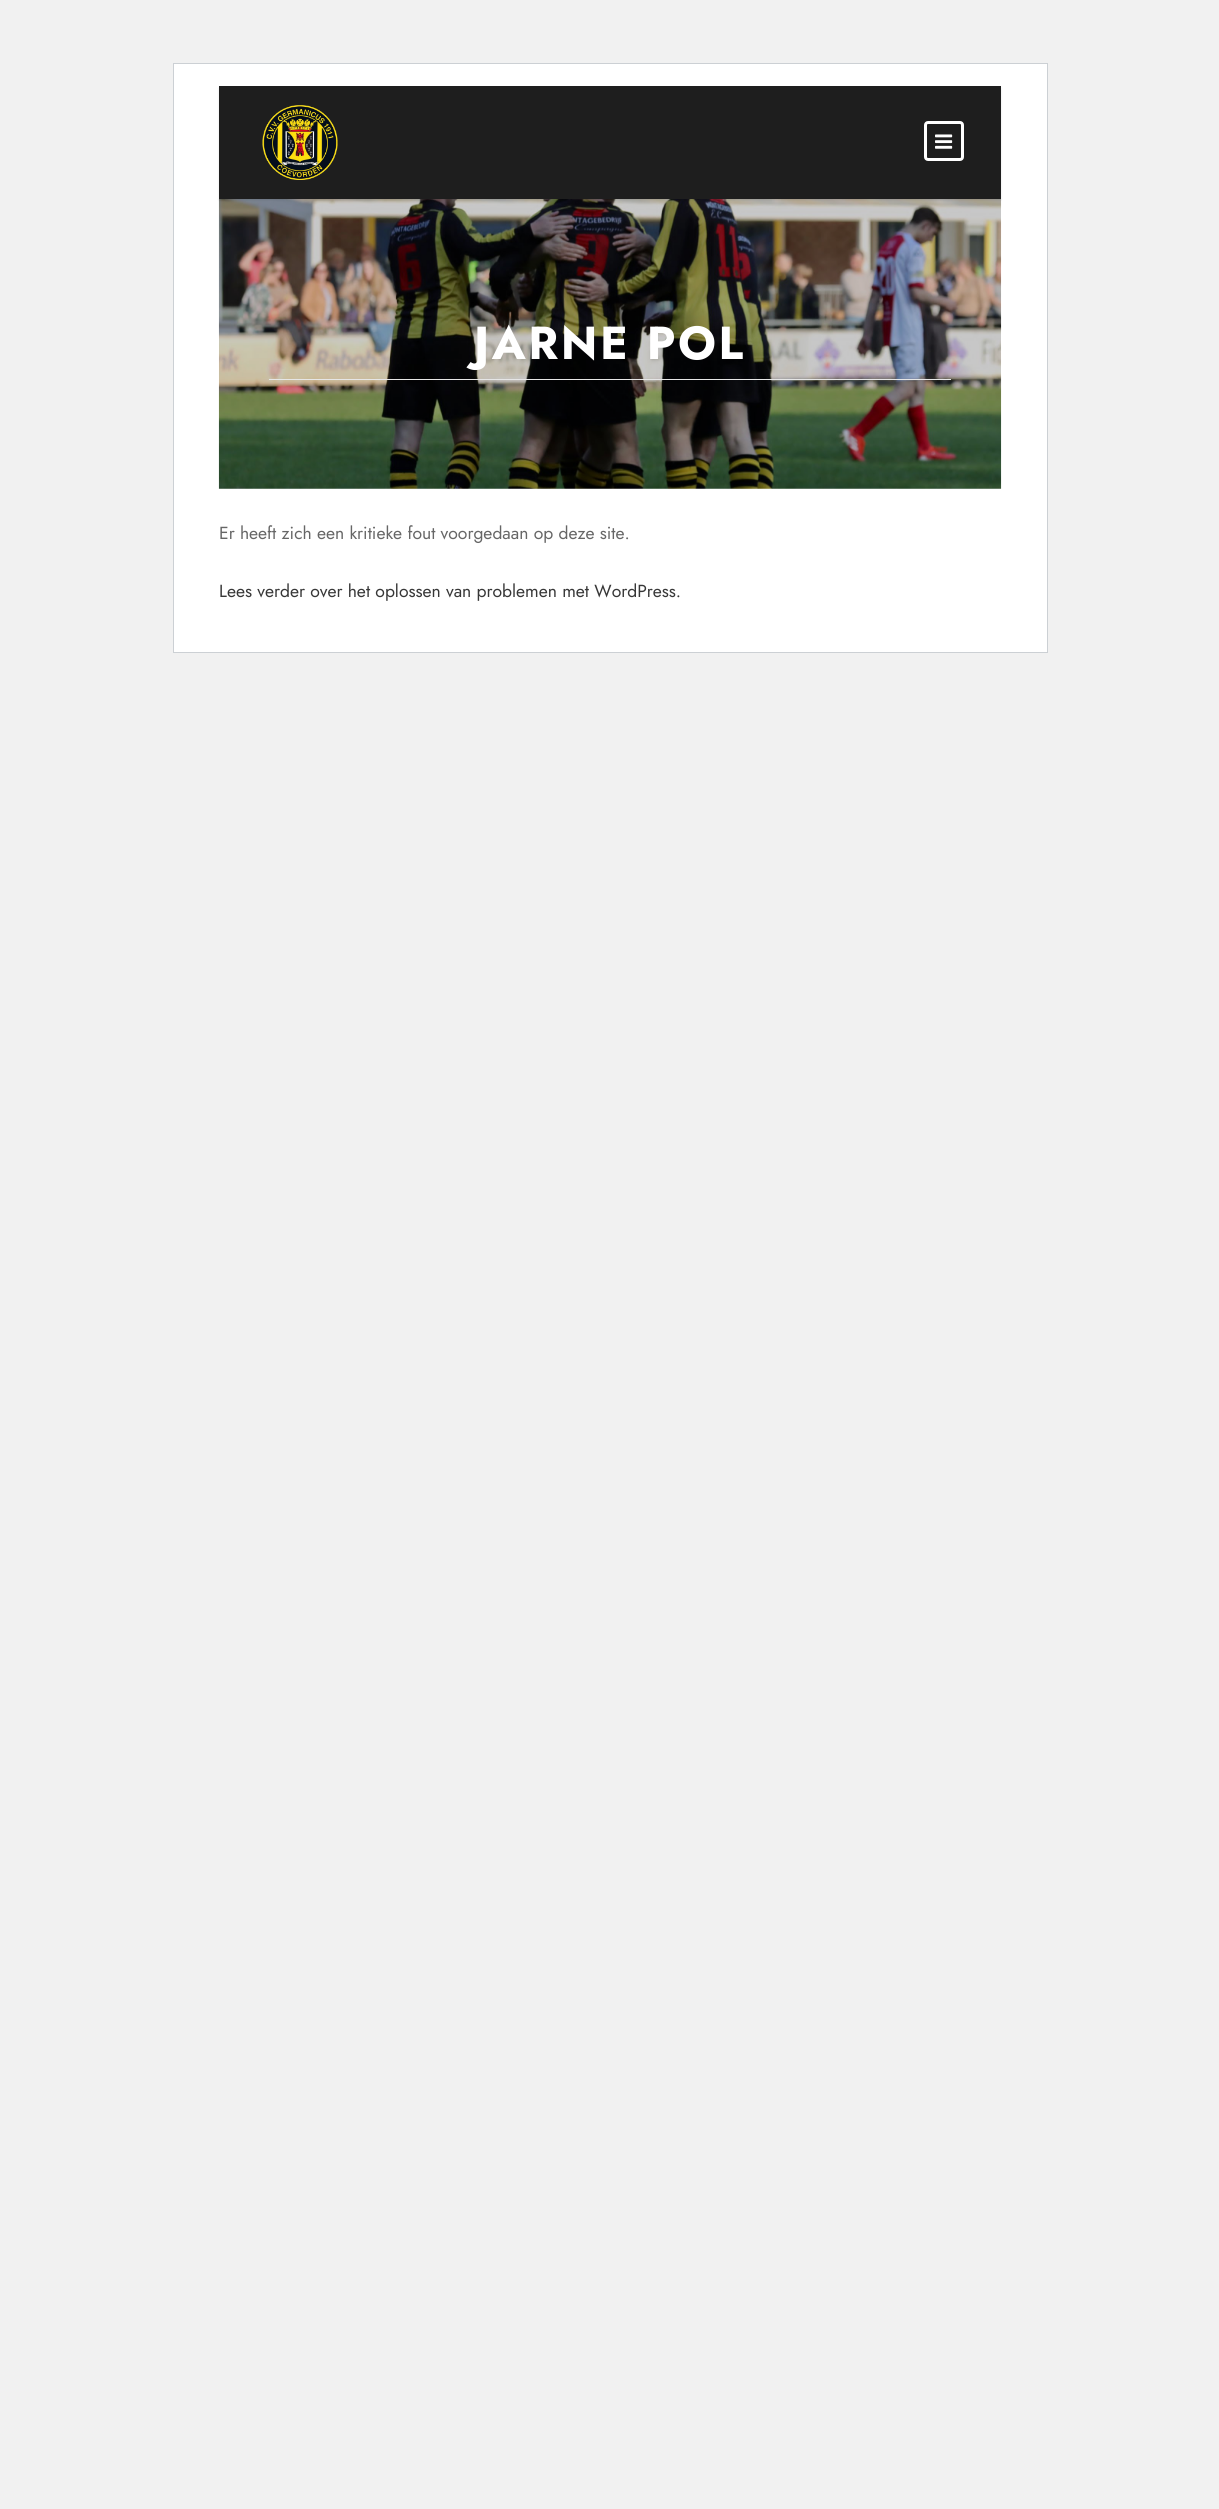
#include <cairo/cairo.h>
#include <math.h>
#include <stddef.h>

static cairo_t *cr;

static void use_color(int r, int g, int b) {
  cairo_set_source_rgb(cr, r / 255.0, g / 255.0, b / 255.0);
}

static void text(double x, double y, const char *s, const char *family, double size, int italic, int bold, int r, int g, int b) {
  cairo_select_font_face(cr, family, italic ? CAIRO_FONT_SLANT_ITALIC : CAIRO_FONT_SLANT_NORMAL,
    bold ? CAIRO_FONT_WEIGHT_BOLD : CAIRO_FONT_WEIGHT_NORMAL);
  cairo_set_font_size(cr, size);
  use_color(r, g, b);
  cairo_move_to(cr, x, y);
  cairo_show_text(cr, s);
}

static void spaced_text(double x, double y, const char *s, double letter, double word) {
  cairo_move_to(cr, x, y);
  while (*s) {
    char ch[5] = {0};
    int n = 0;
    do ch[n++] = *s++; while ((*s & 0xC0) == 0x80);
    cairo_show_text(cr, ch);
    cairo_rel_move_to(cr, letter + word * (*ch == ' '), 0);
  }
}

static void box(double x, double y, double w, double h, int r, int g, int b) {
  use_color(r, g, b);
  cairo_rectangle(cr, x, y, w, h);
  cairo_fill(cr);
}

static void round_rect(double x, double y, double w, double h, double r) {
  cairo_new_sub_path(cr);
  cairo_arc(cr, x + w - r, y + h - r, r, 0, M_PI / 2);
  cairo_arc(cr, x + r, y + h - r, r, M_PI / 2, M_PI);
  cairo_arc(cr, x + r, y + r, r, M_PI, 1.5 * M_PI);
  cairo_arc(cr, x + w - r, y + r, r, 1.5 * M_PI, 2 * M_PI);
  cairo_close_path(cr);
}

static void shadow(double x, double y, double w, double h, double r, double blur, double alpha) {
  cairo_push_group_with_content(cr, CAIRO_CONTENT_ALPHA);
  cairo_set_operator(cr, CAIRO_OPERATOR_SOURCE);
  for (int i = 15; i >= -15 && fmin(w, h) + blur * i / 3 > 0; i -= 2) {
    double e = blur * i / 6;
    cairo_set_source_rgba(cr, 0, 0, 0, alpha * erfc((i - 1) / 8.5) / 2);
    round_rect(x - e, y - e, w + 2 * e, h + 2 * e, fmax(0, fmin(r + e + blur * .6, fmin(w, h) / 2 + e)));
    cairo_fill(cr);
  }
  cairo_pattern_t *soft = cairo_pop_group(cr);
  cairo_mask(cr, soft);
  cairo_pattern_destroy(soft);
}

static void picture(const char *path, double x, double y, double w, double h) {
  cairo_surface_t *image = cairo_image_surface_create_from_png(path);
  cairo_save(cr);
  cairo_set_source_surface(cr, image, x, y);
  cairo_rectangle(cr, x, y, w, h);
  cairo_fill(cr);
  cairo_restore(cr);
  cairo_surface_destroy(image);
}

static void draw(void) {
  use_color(241, 241, 241);
  cairo_paint(cr);
  use_color(255, 255, 255);
  cairo_rectangle(cr, 173.5, 63.5, 874, 589);
  cairo_fill_preserve(cr);
  use_color(204, 208, 212);
  cairo_set_line_width(cr, 1);
  cairo_stroke(cr);
  picture("img_03.png", 218, 199, 784, 290);
  use_color(0, 0, 0);
  shadow(219, 88, 782, 112, 0, 1, 0.1);
  box(219, 86, 782, 113, 30, 30, 30);
  picture("img_01.png", 262, 105, 76, 75);
  round_rect(925.5, 122.5, 37, 37, 2.5);
  use_color(255, 255, 255);
  cairo_set_line_width(cr, 3);
  cairo_stroke(cr);
  picture("img_02.png", 935, 134, 18, 15);
  box(269, 379, 682, 1, 230, 230, 230);
  cairo_select_font_face(cr, "Jost", CAIRO_FONT_SLANT_NORMAL, CAIRO_FONT_WEIGHT_BOLD);
  cairo_set_font_size(cr, 46.25);
  use_color(255, 255, 255);
  spaced_text(474, 359, "JARNE POL", 2.5, 0);
  text(219, 539, "Er heeft zich een kritieke fout voorgedaan op deze site.", "Jost", 17.5, 0, 0, 102, 102, 102);
  text(219, 597, "Lees verder over het oplossen van problemen met WordPress.", "Jost", 17.5, 0, 0, 55, 55, 55);
}

int main(void) {
  cairo_surface_t *surface = cairo_image_surface_create(CAIRO_FORMAT_RGB24, 1219, 2509);
  cr = cairo_create(surface);
  cairo_font_options_t *options = cairo_font_options_create();
  cairo_font_options_set_hint_metrics(options, CAIRO_HINT_METRICS_OFF);
  cairo_font_options_set_hint_style(options, CAIRO_HINT_STYLE_NONE);
  cairo_set_font_options(cr, options);
  cairo_set_miter_limit(cr, 4);
  draw();
  cairo_surface_write_to_png(surface, "out.png");
  cairo_font_options_destroy(options);
  cairo_destroy(cr);
  cairo_surface_destroy(surface);
  return 0;
}
